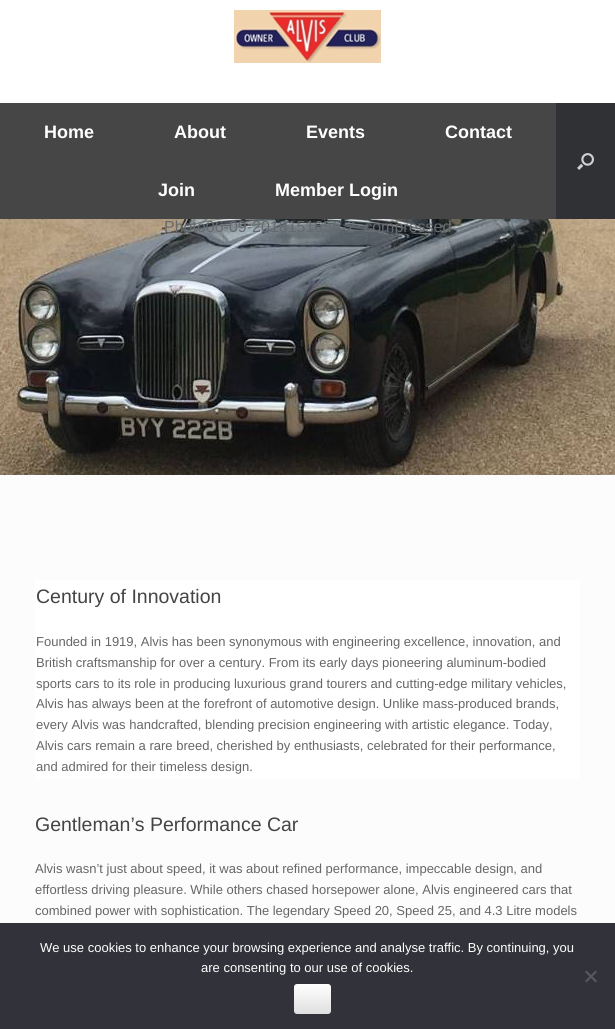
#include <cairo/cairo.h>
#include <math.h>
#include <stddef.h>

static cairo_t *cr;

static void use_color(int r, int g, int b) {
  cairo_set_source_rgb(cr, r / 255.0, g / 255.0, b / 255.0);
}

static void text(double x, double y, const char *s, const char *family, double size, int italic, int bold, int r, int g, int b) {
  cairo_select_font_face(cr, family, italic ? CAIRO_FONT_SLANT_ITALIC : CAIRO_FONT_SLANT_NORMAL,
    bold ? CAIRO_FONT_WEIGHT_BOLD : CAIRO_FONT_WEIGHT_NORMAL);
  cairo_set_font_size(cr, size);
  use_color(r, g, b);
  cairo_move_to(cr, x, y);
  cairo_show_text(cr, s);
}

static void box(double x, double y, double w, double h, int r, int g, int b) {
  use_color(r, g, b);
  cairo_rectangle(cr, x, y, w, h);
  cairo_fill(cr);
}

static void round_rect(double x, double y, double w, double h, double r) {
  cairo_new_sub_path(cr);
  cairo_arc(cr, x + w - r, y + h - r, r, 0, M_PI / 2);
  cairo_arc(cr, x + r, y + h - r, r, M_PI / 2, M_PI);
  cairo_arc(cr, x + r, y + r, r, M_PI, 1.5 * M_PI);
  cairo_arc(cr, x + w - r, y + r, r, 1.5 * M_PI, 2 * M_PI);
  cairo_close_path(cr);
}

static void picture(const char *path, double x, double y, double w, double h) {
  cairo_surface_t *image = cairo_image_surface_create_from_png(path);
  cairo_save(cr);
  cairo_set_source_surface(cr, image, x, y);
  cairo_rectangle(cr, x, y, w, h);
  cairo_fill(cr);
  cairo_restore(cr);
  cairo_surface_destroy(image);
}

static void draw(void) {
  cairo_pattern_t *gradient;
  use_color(255, 255, 255);
  cairo_paint(cr);
  picture("img_01.png", 234, 10, 147, 53);
  box(0, 103, 556, 116, 70, 70, 70);
  box(556, 103, 59, 116, 48, 49, 52);
  picture("img_02.png", 577, 153, 17, 17);
  picture("img_03.png", 0, 219, 615, 256);
  box(0, 475, 615, 448, 252, 252, 252);
  box(35, 580, 545, 199, 255, 255, 255);
  box(0, 923, 615, 106, 50, 50, 58);
  use_color(89, 89, 93);
  cairo_new_path(cr);
  cairo_move_to(cr, 595.5, 970.5);
  cairo_line_to(cr, 597, 972);
  cairo_line_to(cr, 586.5, 982.5);
  cairo_line_to(cr, 585, 981);
  cairo_close_path(cr);
  cairo_fill(cr);
  cairo_new_path(cr);
  cairo_move_to(cr, 585, 972);
  cairo_line_to(cr, 586.5, 970.5);
  cairo_line_to(cr, 597, 981);
  cairo_line_to(cr, 595.5, 982.5);
  cairo_close_path(cr);
  cairo_fill(cr);
  gradient = cairo_pattern_create_linear(294, 1014, 294, 984);
  cairo_pattern_add_color_stop_rgba(gradient, 0, 0.875, 0.875, 0.875, 1);
  cairo_pattern_add_color_stop_rgba(gradient, 1, 1, 1, 1, 1);
  cairo_set_source(cr, gradient);
  cairo_pattern_destroy(gradient);
  round_rect(294, 984, 37, 30, 3);
  cairo_fill(cr);
  text(44, 138, "Home", "Liberation Sans", 18, 0, 1, 255, 255, 255);
  text(174, 138, "About", "Liberation Sans", 18, 0, 1, 255, 255, 255);
  text(306, 138, "Events", "Liberation Sans", 18, 0, 1, 255, 255, 255);
  text(445, 138, "Contact", "Liberation Sans", 18, 0, 1, 255, 255, 255);
  text(158, 196, "Join", "Liberation Sans", 18, 0, 1, 255, 255, 255);
  text(275, 196, "Member Login", "Liberation Sans", 18, 0, 1, 255, 255, 255);
  text(164, 232, "Photo06-09-2018151656-2_compressed", "Liberation Sans", 16, 0, 0, 101, 107, 110);
  text(36, 603, "Century of Innovation", "Liberation Sans", 19.5, 0, 0, 68, 68, 68);
  text(36, 646, "Founded in 1919, Alvis has been synonymous with engineering excellence, innovation, and", "Liberation Sans", 13, 0, 0, 102, 102, 102);
  text(36, 667, "British craftsmanship for over a century. From its early days pioneering aluminum-bodied", "Liberation Sans", 13, 0, 0, 102, 102, 102);
  text(36, 688, "sports cars to its role in producing luxurious grand tourers and cutting-edge military vehicles,", "Liberation Sans", 13, 0, 0, 102, 102, 102);
  text(36, 708, "Alvis has always been at the forefront of automotive design. Unlike mass-produced brands,", "Liberation Sans", 13, 0, 0, 102, 102, 102);
  text(36, 729, "every Alvis was handcrafted, blending precision engineering with artistic elegance. Today,", "Liberation Sans", 13, 0, 0, 102, 102, 102);
  text(36, 750, "Alvis cars remain a rare breed, cherished by enthusiasts, celebrated for their performance,", "Liberation Sans", 13, 0, 0, 102, 102, 102);
  text(36, 771, "and admired for their timeless design.", "Liberation Sans", 13, 0, 0, 102, 102, 102);
  text(35, 831, "Gentleman’s Performance Car", "Liberation Sans", 19.5, 0, 0, 68, 68, 68);
  text(35, 873, "Alvis wasn’t just about speed, it was about refined performance, impeccable design, and", "Liberation Sans", 13, 0, 0, 102, 102, 102);
  text(35, 894, "effortless driving pleasure. While others chased horsepower alone, Alvis engineered cars that", "Liberation Sans", 13, 0, 0, 102, 102, 102);
  text(35, 915, "combined power with sophistication. The legendary Speed 20, Speed 25, and 4.3 Litre models", "Liberation Sans", 13, 0, 0, 102, 102, 102);
  text(40, 952, "We use cookies to enhance your browsing experience and analyse traffic. By continuing, you", "Liberation Sans", 13, 0, 0, 255, 255, 255);
  text(201, 972, "are consenting to our use of cookies.", "Liberation Sans", 13, 0, 0, 255, 255, 255);
}

int main(void) {
  cairo_surface_t *surface = cairo_image_surface_create(CAIRO_FORMAT_RGB24, 615, 1029);
  cr = cairo_create(surface);
  cairo_font_options_t *options = cairo_font_options_create();
  cairo_font_options_set_hint_metrics(options, CAIRO_HINT_METRICS_OFF);
  cairo_font_options_set_hint_style(options, CAIRO_HINT_STYLE_NONE);
  cairo_set_font_options(cr, options);
  cairo_set_miter_limit(cr, 4);
  draw();
  cairo_surface_write_to_png(surface, "out.png");
  cairo_font_options_destroy(options);
  cairo_destroy(cr);
  cairo_surface_destroy(surface);
  return 0;
}
